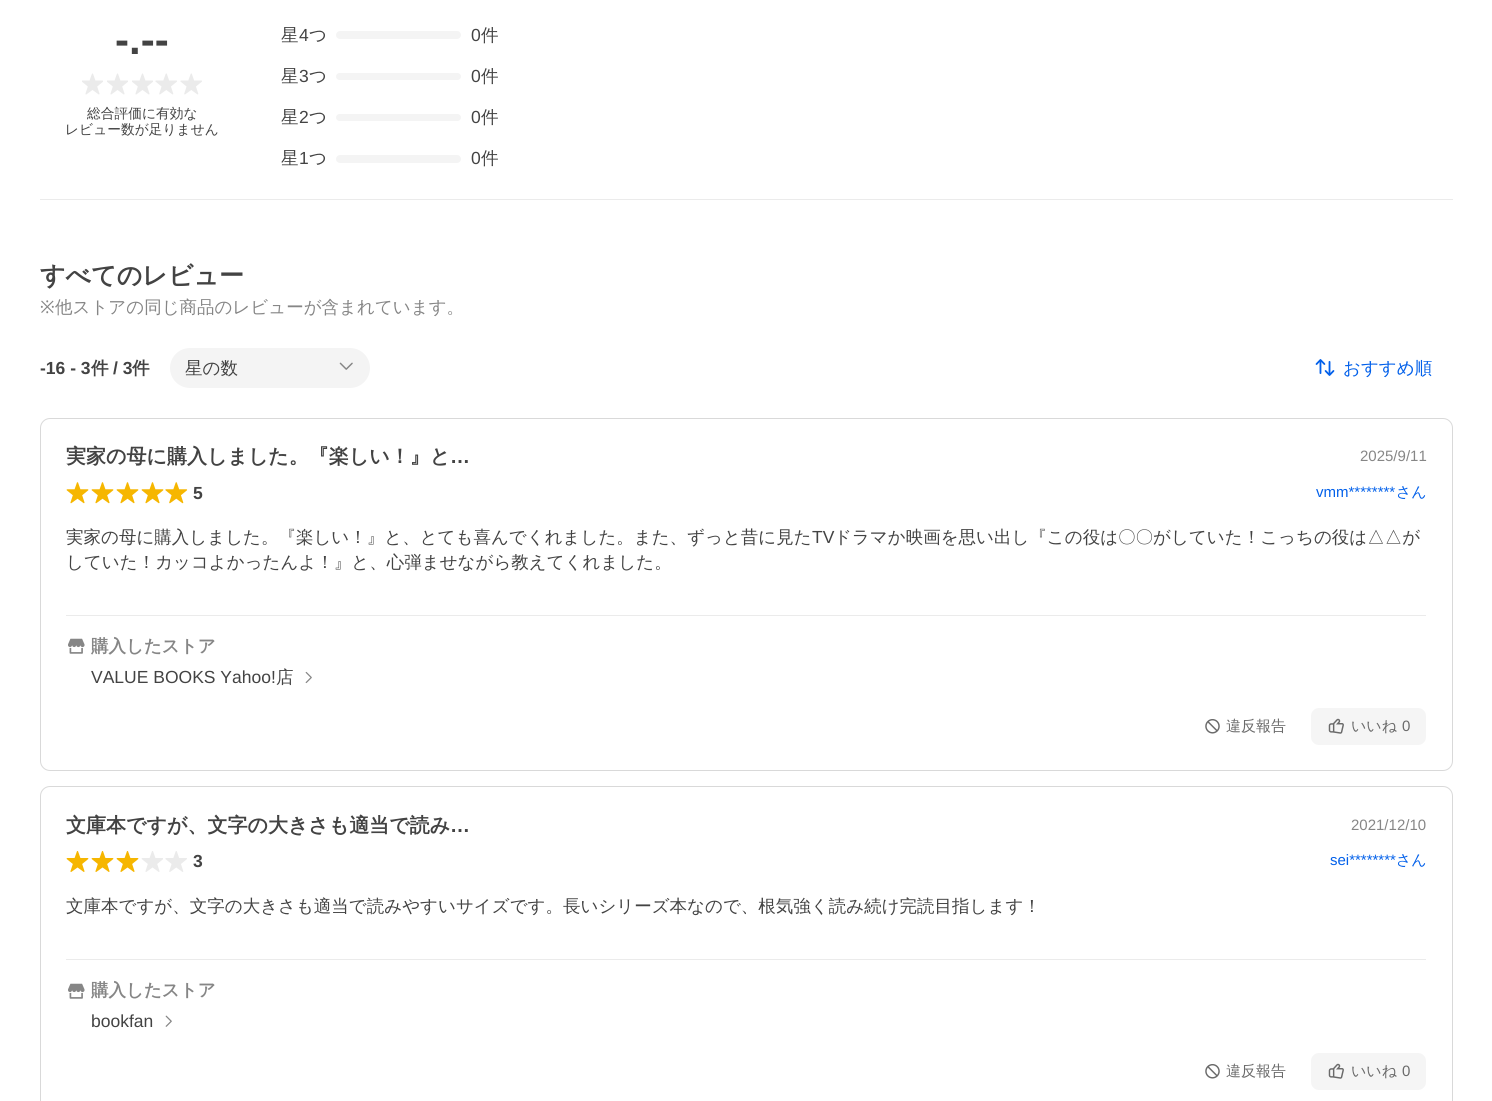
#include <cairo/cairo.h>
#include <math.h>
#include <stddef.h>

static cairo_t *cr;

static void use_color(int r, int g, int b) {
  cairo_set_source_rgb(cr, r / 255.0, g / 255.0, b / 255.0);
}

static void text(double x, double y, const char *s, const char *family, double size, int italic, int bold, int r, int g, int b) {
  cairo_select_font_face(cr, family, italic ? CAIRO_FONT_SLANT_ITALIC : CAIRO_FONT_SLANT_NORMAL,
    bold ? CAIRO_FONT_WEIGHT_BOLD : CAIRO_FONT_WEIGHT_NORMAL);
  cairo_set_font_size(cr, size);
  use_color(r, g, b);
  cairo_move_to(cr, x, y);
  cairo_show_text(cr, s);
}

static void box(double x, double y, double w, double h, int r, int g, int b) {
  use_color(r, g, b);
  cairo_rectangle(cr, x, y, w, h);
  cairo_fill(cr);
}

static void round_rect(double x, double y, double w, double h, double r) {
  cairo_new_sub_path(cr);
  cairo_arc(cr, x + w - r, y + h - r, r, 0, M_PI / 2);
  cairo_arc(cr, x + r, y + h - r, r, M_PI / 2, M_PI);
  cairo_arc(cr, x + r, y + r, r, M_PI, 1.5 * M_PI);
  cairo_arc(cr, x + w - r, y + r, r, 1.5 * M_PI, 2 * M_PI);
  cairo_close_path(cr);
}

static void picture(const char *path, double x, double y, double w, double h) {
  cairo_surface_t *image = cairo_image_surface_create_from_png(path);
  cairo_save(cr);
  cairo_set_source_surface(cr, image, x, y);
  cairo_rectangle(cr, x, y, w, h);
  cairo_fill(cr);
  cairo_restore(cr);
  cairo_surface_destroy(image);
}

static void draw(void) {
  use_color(255, 255, 255);
  cairo_paint(cr);
  picture("img_01.png", 82, 73, 21, 22);
  picture("img_01.png", 107, 73, 21, 22);
  picture("img_01.png", 132, 73, 21, 22);
  picture("img_02.png", 155, 73, 22, 22);
  picture("img_02.png", 180, 73, 22, 22);
  use_color(244, 244, 244);
  round_rect(336, 31, 125, 8, 4);
  cairo_fill(cr);
  round_rect(336, 73, 125, 7, 3.5);
  cairo_fill(cr);
  round_rect(336, 114, 125, 7, 3.5);
  cairo_fill(cr);
  round_rect(336, 155, 125, 8, 4);
  cairo_fill(cr);
  box(40, 199, 1413, 1, 235, 235, 235);
  use_color(244, 244, 244);
  round_rect(170, 348, 200, 40, 20);
  cairo_fill(cr);
  picture("img_03.png", 339, 362, 14, 8);
  picture("img_04.png", 1315, 359, 20, 17);
  round_rect(40.5, 418.5, 1412, 352, 9.5);
  use_color(217, 217, 217);
  cairo_set_line_width(cr, 1);
  cairo_stroke(cr);
  picture("img_05.png", 66, 482, 23, 22);
  picture("img_05.png", 91, 482, 23, 22);
  picture("img_05.png", 116, 482, 23, 22);
  picture("img_05.png", 141, 482, 23, 22);
  picture("img_06.png", 165, 482, 23, 22);
  box(66, 615, 1360, 1, 235, 235, 235);
  picture("img_07.png", 68, 638, 17, 16);
  picture("img_08.png", 305, 671, 7, 13);
  picture("img_09.png", 1205, 719, 15, 15);
  use_color(245, 245, 245);
  round_rect(1311, 708, 115, 37, 8);
  cairo_fill(cr);
  picture("img_10.png", 1328, 718, 16, 16);
  round_rect(40.5, 786.5, 1412, 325, 9.5);
  use_color(217, 217, 217);
  cairo_stroke(cr);
  picture("img_11.png", 66, 851, 23, 21);
  picture("img_11.png", 91, 851, 23, 21);
  picture("img_11.png", 116, 851, 23, 21);
  picture("img_12.png", 141, 851, 22, 21);
  picture("img_13.png", 165, 851, 22, 21);
  box(66, 959, 1360, 1, 235, 235, 235);
  picture("img_07.png", 68, 983, 17, 16);
  picture("img_14.png", 165, 1015, 7, 12);
  picture("img_09.png", 1205, 1064, 15, 15);
  use_color(245, 245, 245);
  round_rect(1311, 1053, 115, 37, 8);
  cairo_fill(cr);
  picture("img_10.png", 1328, 1063, 16, 16);
  text(115, 54, "-.--", "Liberation Sans", 42, 0, 1, 67, 67, 67);
  text(87, 118, "総合評価に有効な", "WenQuanYi Zen Hei Medium", 13.75, 0, 0, 67, 67, 67);
  text(65, 134, "レビュー数が足りません", "WenQuanYi Zen Hei Medium", 13.75, 0, 0, 67, 67, 67);
  text(281, 41, "星", "WenQuanYi Zen Hei Medium", 17.5, 0, 0, 67, 67, 67);
  text(299, 41, "4", "Liberation Sans", 17.5, 0, 0, 67, 67, 67);
  text(309, 41, "つ", "WenQuanYi Zen Hei Medium", 17.5, 0, 0, 67, 67, 67);
  text(471, 41, "0", "Liberation Sans", 17.5, 0, 0, 67, 67, 67);
  text(481, 41, "件", "WenQuanYi Zen Hei Medium", 17.5, 0, 0, 67, 67, 67);
  text(281, 82, "星", "WenQuanYi Zen Hei Medium", 17.5, 0, 0, 67, 67, 67);
  text(299, 82, "3", "Liberation Sans", 17.5, 0, 0, 67, 67, 67);
  text(309, 82, "つ", "WenQuanYi Zen Hei Medium", 17.5, 0, 0, 67, 67, 67);
  text(471, 82, "0", "Liberation Sans", 17.5, 0, 0, 67, 67, 67);
  text(481, 82, "件", "WenQuanYi Zen Hei Medium", 17.5, 0, 0, 67, 67, 67);
  text(281, 123, "星", "WenQuanYi Zen Hei Medium", 17.5, 0, 0, 67, 67, 67);
  text(299, 123, "2", "Liberation Sans", 17.5, 0, 0, 67, 67, 67);
  text(309, 123, "つ", "WenQuanYi Zen Hei Medium", 17.5, 0, 0, 67, 67, 67);
  text(471, 123, "0", "Liberation Sans", 17.5, 0, 0, 67, 67, 67);
  text(481, 123, "件", "WenQuanYi Zen Hei Medium", 17.5, 0, 0, 67, 67, 67);
  text(281, 164, "星", "WenQuanYi Zen Hei Medium", 17.5, 0, 0, 67, 67, 67);
  text(299, 164, "1", "Liberation Sans", 17.5, 0, 0, 67, 67, 67);
  text(309, 164, "つ", "WenQuanYi Zen Hei Medium", 17.5, 0, 0, 67, 67, 67);
  text(471, 164, "0", "Liberation Sans", 17.5, 0, 0, 67, 67, 67);
  text(481, 164, "件", "WenQuanYi Zen Hei Medium", 17.5, 0, 0, 67, 67, 67);
  text(40, 284, "すべてのレビュー", "WenQuanYi Zen Hei", 25, 0, 1, 67, 67, 67);
  text(40, 313, "※", "Noto Sans", 17.5, 0, 0, 134, 134, 134);
  text(55, 313, "他ストアの同じ商品のレビューが含まれています。", "WenQuanYi Zen Hei Medium", 17.5, 0, 0, 134, 134, 134);
  text(40, 374, "-16 - 3", "Liberation Sans", 17.5, 0, 1, 67, 67, 67);
  text(91, 374, "件", "WenQuanYi Zen Hei", 17.5, 0, 1, 67, 67, 67);
  text(113, 374, "/ 3", "Liberation Sans", 17.5, 0, 1, 67, 67, 67);
  text(132, 374, "件", "WenQuanYi Zen Hei", 17.5, 0, 1, 67, 67, 67);
  text(185, 374, "星の数", "WenQuanYi Zen Hei Medium", 17.5, 0, 0, 67, 67, 67);
  text(1343, 374, "おすすめ順", "WenQuanYi Zen Hei Medium", 17.5, 0, 0, 2, 96, 234);
  text(66, 463, "実家の母に購入しました。『楽しい！』と", "WenQuanYi Zen Hei", 20, 0, 1, 67, 67, 67);
  text(450, 463, "…", "Liberation Sans", 20, 0, 1, 67, 67, 67);
  text(1360, 461, "2025/9/11", "Liberation Sans", 15, 0, 0, 134, 134, 134);
  text(193, 499, "5", "Liberation Sans", 17.5, 0, 1, 67, 67, 67);
  text(1316, 497, "vmm********", "Liberation Sans", 15, 0, 0, 2, 96, 234);
  text(1396, 497, "さん", "WenQuanYi Zen Hei Medium", 15, 0, 0, 2, 96, 234);
  text(66, 543, "実家の母に購入しました。『楽しい！』と、とても喜んでくれました。また、ずっと昔に見た", "WenQuanYi Zen Hei Medium", 17.5, 0, 0, 67, 67, 67);
  text(812, 543, "TV", "Liberation Sans", 17.5, 0, 0, 67, 67, 67);
  text(834, 543, "ドラマか映画を思い出し『この役は〇〇がしていた！こっちの役は△△が", "WenQuanYi Zen Hei Medium", 17.5, 0, 0, 67, 67, 67);
  text(66, 568, "していた！カッコよかったんよ！』と、心弾ませながら教えてくれました。", "WenQuanYi Zen Hei Medium", 17.5, 0, 0, 67, 67, 67);
  text(91, 652, "購入したストア", "WenQuanYi Zen Hei", 17.5, 0, 1, 134, 134, 134);
  text(91, 683, "VALUE BOOKS Yahoo!", "Liberation Sans", 17.5, 0, 0, 67, 67, 67);
  text(276, 683, "店", "WenQuanYi Zen Hei Medium", 17.5, 0, 0, 67, 67, 67);
  text(1226, 731, "違反報告", "WenQuanYi Zen Hei Medium", 15, 0, 0, 106, 106, 106);
  text(1351, 731, "いいね", "WenQuanYi Zen Hei Medium", 15, 0, 0, 106, 106, 106);
  text(1402, 731, "0", "Liberation Sans", 15, 0, 0, 106, 106, 106);
  text(66, 832, "文庫本ですが、文字の大きさも適当で読み", "WenQuanYi Zen Hei", 20, 0, 1, 67, 67, 67);
  text(450, 832, "…", "Liberation Sans", 20, 0, 1, 67, 67, 67);
  text(1351, 830, "2021/12/10", "Liberation Sans", 15, 0, 0, 134, 134, 134);
  text(193, 867, "3", "Liberation Sans", 17.5, 0, 1, 67, 67, 67);
  text(1330, 865, "sei********", "Liberation Sans", 15, 0, 0, 2, 96, 234);
  text(1396, 865, "さん", "WenQuanYi Zen Hei Medium", 15, 0, 0, 2, 96, 234);
  text(66, 912, "文庫本ですが、文字の大きさも適当で読みやすいサイズです。長いシリーズ本なので、根気強く読み続け完読目指します！", "WenQuanYi Zen Hei Medium", 17.5, 0, 0, 67, 67, 67);
  text(91, 996, "購入したストア", "WenQuanYi Zen Hei", 17.5, 0, 1, 134, 134, 134);
  text(91, 1027, "bookfan", "Liberation Sans", 17.5, 0, 0, 67, 67, 67);
  text(1226, 1076, "違反報告", "WenQuanYi Zen Hei Medium", 15, 0, 0, 106, 106, 106);
  text(1351, 1076, "いいね", "WenQuanYi Zen Hei Medium", 15, 0, 0, 106, 106, 106);
  text(1402, 1076, "0", "Liberation Sans", 15, 0, 0, 106, 106, 106);
}

int main(void) {
  cairo_surface_t *surface = cairo_image_surface_create(CAIRO_FORMAT_RGB24, 1492, 1101);
  cr = cairo_create(surface);
  cairo_font_options_t *options = cairo_font_options_create();
  cairo_font_options_set_hint_metrics(options, CAIRO_HINT_METRICS_OFF);
  cairo_font_options_set_hint_style(options, CAIRO_HINT_STYLE_NONE);
  cairo_set_font_options(cr, options);
  cairo_set_miter_limit(cr, 4);
  draw();
  cairo_surface_write_to_png(surface, "out.png");
  cairo_font_options_destroy(options);
  cairo_destroy(cr);
  cairo_surface_destroy(surface);
  return 0;
}
